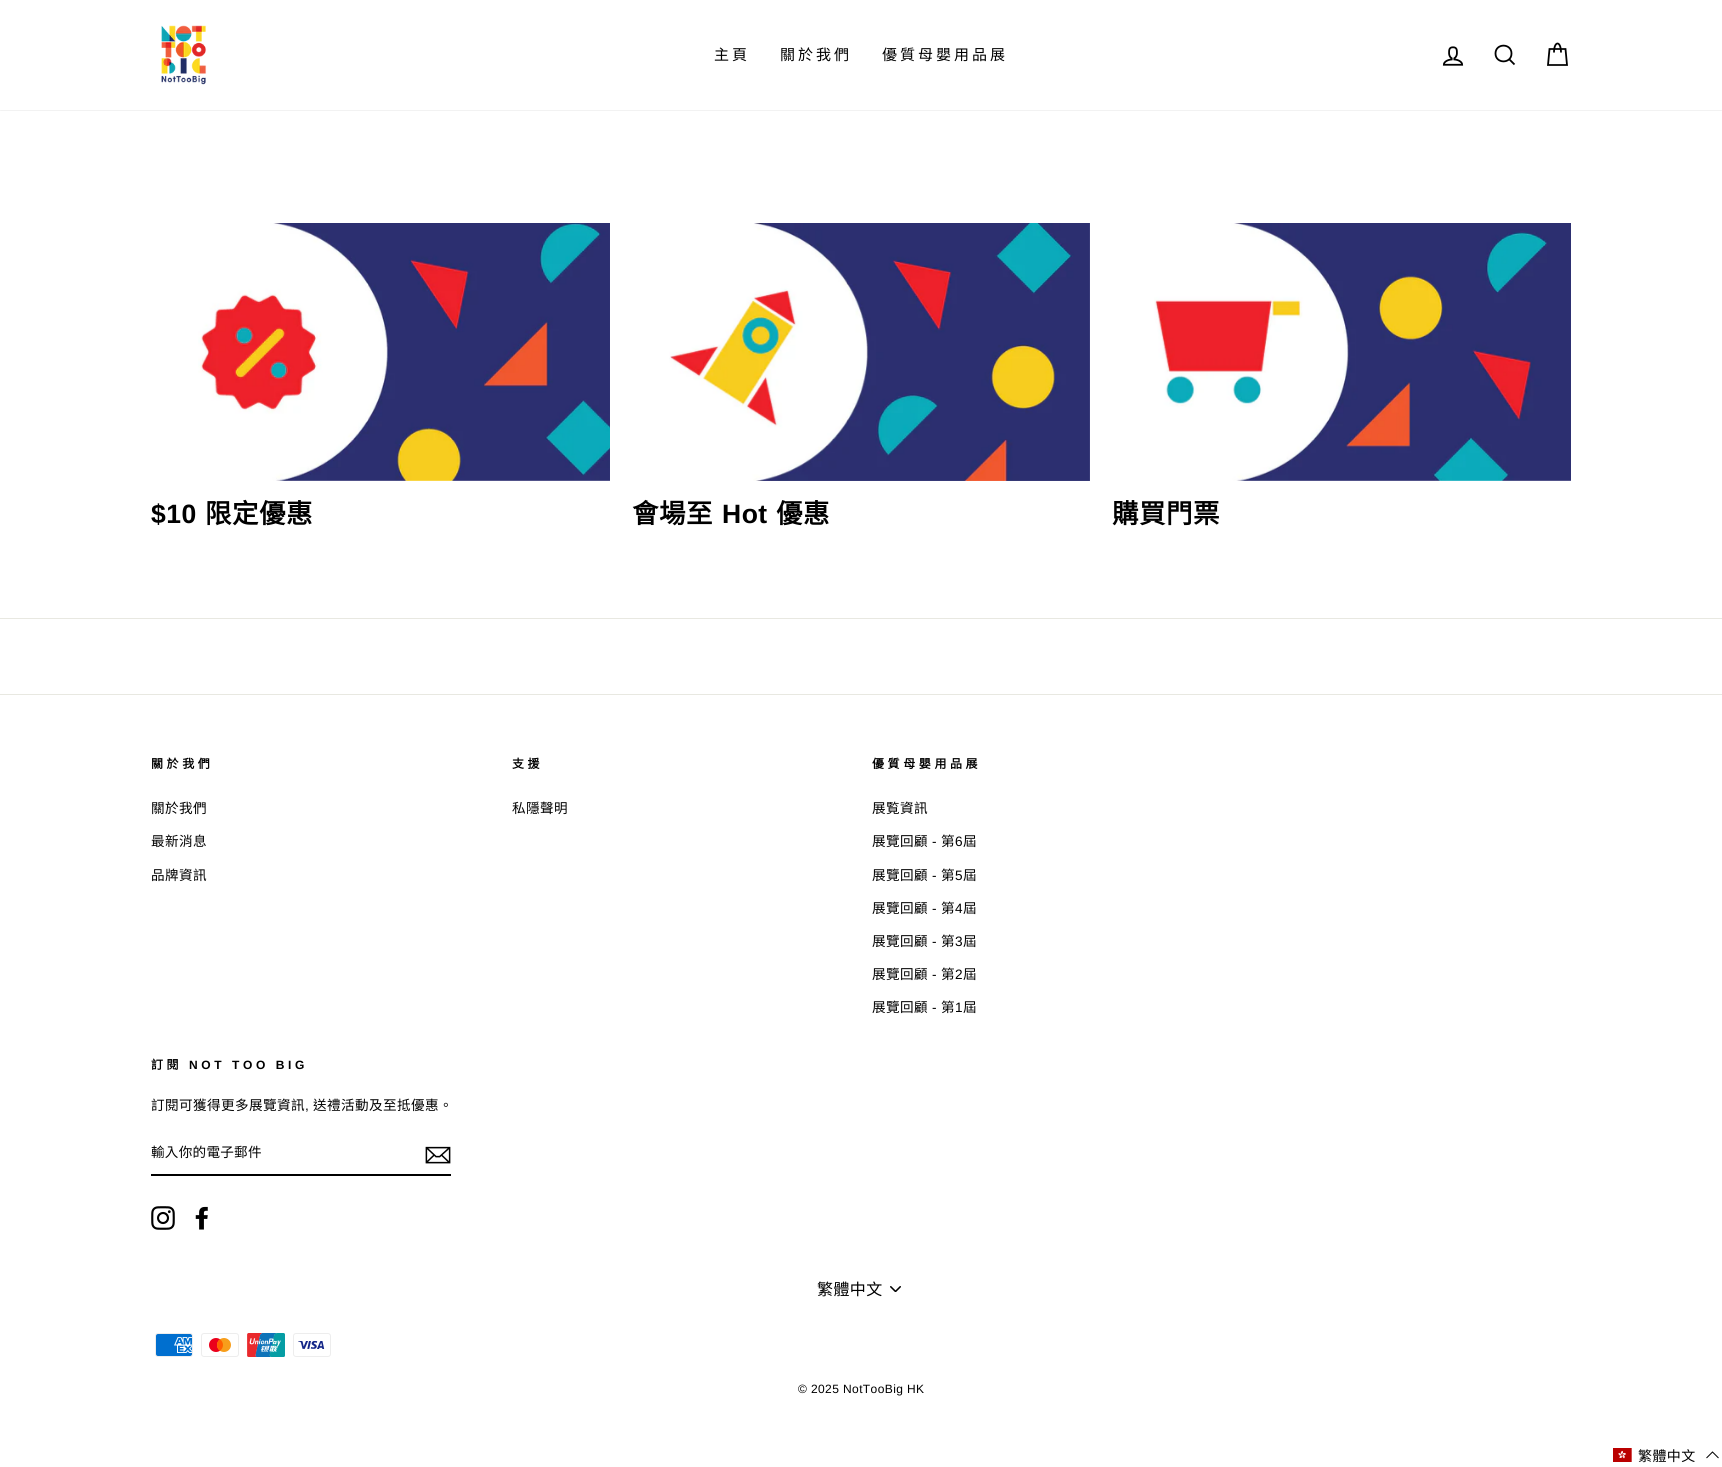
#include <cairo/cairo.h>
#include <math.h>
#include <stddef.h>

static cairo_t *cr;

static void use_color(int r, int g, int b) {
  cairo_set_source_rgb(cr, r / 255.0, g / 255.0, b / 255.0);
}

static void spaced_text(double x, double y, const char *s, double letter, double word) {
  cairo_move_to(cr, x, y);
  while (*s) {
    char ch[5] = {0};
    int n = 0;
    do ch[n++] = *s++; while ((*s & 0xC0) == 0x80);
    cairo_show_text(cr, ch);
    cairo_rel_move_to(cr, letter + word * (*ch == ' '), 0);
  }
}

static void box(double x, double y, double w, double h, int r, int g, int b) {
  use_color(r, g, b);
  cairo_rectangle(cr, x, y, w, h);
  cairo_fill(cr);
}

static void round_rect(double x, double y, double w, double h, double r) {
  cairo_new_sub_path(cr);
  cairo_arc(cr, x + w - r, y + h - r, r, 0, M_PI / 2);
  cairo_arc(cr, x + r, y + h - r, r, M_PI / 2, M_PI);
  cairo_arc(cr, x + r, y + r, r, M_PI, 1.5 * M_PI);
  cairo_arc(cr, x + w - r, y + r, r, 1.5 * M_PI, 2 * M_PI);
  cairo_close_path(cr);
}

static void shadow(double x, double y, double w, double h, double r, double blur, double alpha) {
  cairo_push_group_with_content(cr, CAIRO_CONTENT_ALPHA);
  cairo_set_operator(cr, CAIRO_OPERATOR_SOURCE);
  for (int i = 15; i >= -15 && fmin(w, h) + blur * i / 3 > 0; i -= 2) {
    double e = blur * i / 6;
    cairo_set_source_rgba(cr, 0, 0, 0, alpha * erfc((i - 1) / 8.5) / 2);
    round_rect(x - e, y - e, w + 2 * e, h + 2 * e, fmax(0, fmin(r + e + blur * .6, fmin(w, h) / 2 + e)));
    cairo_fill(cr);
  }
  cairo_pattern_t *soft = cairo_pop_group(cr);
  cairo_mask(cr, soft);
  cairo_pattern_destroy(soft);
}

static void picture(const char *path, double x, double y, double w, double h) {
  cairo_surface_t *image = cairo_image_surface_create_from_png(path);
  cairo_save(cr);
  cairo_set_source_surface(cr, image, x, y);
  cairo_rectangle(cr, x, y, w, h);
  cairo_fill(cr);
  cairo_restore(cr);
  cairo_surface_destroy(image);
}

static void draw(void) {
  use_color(255, 255, 255);
  cairo_paint(cr);
  use_color(0, 0, 0);
  shadow(0, 0, 1722, 110, 0, 0.5, 0.2);
  box(0, 0, 1722, 110, 255, 255, 255);
  picture("img_01.png", 161, 25, 46, 60);
  picture("img_02.png", 1442, 46, 22, 20);
  cairo_new_path(cr);
  cairo_move_to(cr, 1511.5, 53.5);
  cairo_curve_to(cr, 1511.5, 64, 1495.5, 64, 1495.5, 53.5);
  cairo_curve_to(cr, 1495.5, 43, 1511.5, 43, 1511.5, 53.5);
  cairo_close_path(cr);
  cairo_move_to(cr, 1514.5, 64.5);
  cairo_line_to(cr, 1509.5, 59.5);
  use_color(0, 0, 0);
  cairo_set_line_width(cr, 1.8);
  cairo_stroke(cr);
  cairo_new_path(cr);
  cairo_move_to(cr, 1554, 52.5);
  cairo_curve_to(cr, 1554, 40.5, 1561, 40.5, 1561, 52.5);
  cairo_move_to(cr, 1549.5, 49);
  cairo_line_to(cr, 1565.5, 49);
  cairo_line_to(cr, 1567, 65);
  cairo_line_to(cr, 1548, 65);
  cairo_close_path(cr);
  cairo_stroke(cr);
  box(0, 618, 1722, 1, 232, 232, 225);
  picture("img_03.png", 198, 223, 412, 258);
  picture("img_04.png", 669, 223, 421, 258);
  picture("img_05.png", 1154, 223, 417, 258);
  box(0, 694, 1722, 1, 232, 232, 225);
  box(151, 1174, 300, 2, 0, 0, 0);
  picture("img_06.png", 425, 1146, 26, 18);
  picture("img_07.png", 151, 1206, 24, 24);
  picture("img_08.png", 195, 1206, 13, 24);
  picture("img_09.png", 890, 1286, 11, 6);
  picture("img_10.png", 155, 1333, 38, 24);
  picture("img_11.png", 201, 1333, 38, 24);
  picture("img_12.png", 247, 1333, 38, 24);
  picture("img_13.png", 293, 1333, 38, 24);
  picture("img_14.png", 1613, 1448, 19, 14);
  cairo_new_path(cr);
  cairo_move_to(cr, 1718.5, 1458);
  cairo_line_to(cr, 1712.5, 1452);
  cairo_line_to(cr, 1706.5, 1458);
  cairo_set_line_width(cr, 1);
  cairo_stroke(cr);
  cairo_select_font_face(cr, "Noto Sans CJK TC", CAIRO_FONT_SLANT_NORMAL, CAIRO_FONT_WEIGHT_NORMAL);
  cairo_set_font_size(cr, 15);
  spaced_text(714, 60, "主頁", 3, 0);
  spaced_text(780, 60, "關於我們", 3, 0);
  spaced_text(882, 60, "優質母嬰用品展", 3, 0);
  cairo_select_font_face(cr, "Arimo", CAIRO_FONT_SLANT_NORMAL, CAIRO_FONT_WEIGHT_BOLD);
  cairo_set_font_size(cr, 26.5);
  spaced_text(151, 523, "$10", 0.5, 0);
  cairo_select_font_face(cr, "Noto Sans CJK TC", CAIRO_FONT_SLANT_NORMAL, CAIRO_FONT_WEIGHT_BOLD);
  spaced_text(205, 523, "限定優惠", 0.5, 0);
  spaced_text(632, 523, "會場至", 0.5, 0);
  cairo_select_font_face(cr, "Arimo", CAIRO_FONT_SLANT_NORMAL, CAIRO_FONT_WEIGHT_BOLD);
  spaced_text(722, 523, "Hot", 0.5, 0);
  cairo_select_font_face(cr, "Noto Sans CJK TC", CAIRO_FONT_SLANT_NORMAL, CAIRO_FONT_WEIGHT_BOLD);
  spaced_text(776, 523, "優惠", 0.5, 0);
  spaced_text(1112, 523, "購買門票", 0.5, 0);
  cairo_set_font_size(cr, 12);
  spaced_text(151, 768, "關於我們", 3.6, 0);
  cairo_select_font_face(cr, "Noto Sans CJK TC", CAIRO_FONT_SLANT_NORMAL, CAIRO_FONT_WEIGHT_NORMAL);
  cairo_set_font_size(cr, 13.6);
  spaced_text(151, 813, "關於我們", 0.4, 0);
  spaced_text(151, 846, "最新消息", 0.4, 0);
  spaced_text(151, 880, "品牌資訊", 0.4, 0);
  cairo_select_font_face(cr, "Noto Sans CJK TC", CAIRO_FONT_SLANT_NORMAL, CAIRO_FONT_WEIGHT_BOLD);
  cairo_set_font_size(cr, 12);
  spaced_text(512, 768, "支援", 3.6, 0);
  cairo_select_font_face(cr, "Noto Sans CJK TC", CAIRO_FONT_SLANT_NORMAL, CAIRO_FONT_WEIGHT_NORMAL);
  cairo_set_font_size(cr, 13.6);
  spaced_text(512, 813, "私隱聲明", 0.4, 0);
  cairo_select_font_face(cr, "Noto Sans CJK TC", CAIRO_FONT_SLANT_NORMAL, CAIRO_FONT_WEIGHT_BOLD);
  cairo_set_font_size(cr, 12);
  spaced_text(872, 768, "優質母嬰用品展", 3.6, 0);
  cairo_select_font_face(cr, "Noto Sans CJK TC", CAIRO_FONT_SLANT_NORMAL, CAIRO_FONT_WEIGHT_NORMAL);
  cairo_set_font_size(cr, 13.6);
  spaced_text(872, 813, "展覧資訊", 0.4, 0);
  spaced_text(872, 846, "展覽回顧", 0.4, 0);
  cairo_select_font_face(cr, "Arimo", CAIRO_FONT_SLANT_NORMAL, CAIRO_FONT_WEIGHT_NORMAL);
  spaced_text(932, 846, "-", 0.4, 0);
  cairo_select_font_face(cr, "Noto Sans CJK TC", CAIRO_FONT_SLANT_NORMAL, CAIRO_FONT_WEIGHT_NORMAL);
  spaced_text(941, 846, "第", 0.4, 0);
  cairo_select_font_face(cr, "Arimo", CAIRO_FONT_SLANT_NORMAL, CAIRO_FONT_WEIGHT_NORMAL);
  spaced_text(955, 846, "6", 0.4, 0);
  cairo_select_font_face(cr, "Noto Sans CJK TC", CAIRO_FONT_SLANT_NORMAL, CAIRO_FONT_WEIGHT_NORMAL);
  spaced_text(963, 846, "屆", 0.4, 0);
  spaced_text(872, 880, "展覽回顧", 0.4, 0);
  cairo_select_font_face(cr, "Arimo", CAIRO_FONT_SLANT_NORMAL, CAIRO_FONT_WEIGHT_NORMAL);
  spaced_text(932, 880, "-", 0.4, 0);
  cairo_select_font_face(cr, "Noto Sans CJK TC", CAIRO_FONT_SLANT_NORMAL, CAIRO_FONT_WEIGHT_NORMAL);
  spaced_text(941, 880, "第", 0.4, 0);
  cairo_select_font_face(cr, "Arimo", CAIRO_FONT_SLANT_NORMAL, CAIRO_FONT_WEIGHT_NORMAL);
  spaced_text(955, 880, "5", 0.4, 0);
  cairo_select_font_face(cr, "Noto Sans CJK TC", CAIRO_FONT_SLANT_NORMAL, CAIRO_FONT_WEIGHT_NORMAL);
  spaced_text(963, 880, "屆", 0.4, 0);
  spaced_text(872, 913, "展覽回顧", 0.4, 0);
  cairo_select_font_face(cr, "Arimo", CAIRO_FONT_SLANT_NORMAL, CAIRO_FONT_WEIGHT_NORMAL);
  spaced_text(932, 913, "-", 0.4, 0);
  cairo_select_font_face(cr, "Noto Sans CJK TC", CAIRO_FONT_SLANT_NORMAL, CAIRO_FONT_WEIGHT_NORMAL);
  spaced_text(941, 913, "第", 0.4, 0);
  cairo_select_font_face(cr, "Arimo", CAIRO_FONT_SLANT_NORMAL, CAIRO_FONT_WEIGHT_NORMAL);
  spaced_text(955, 913, "4", 0.4, 0);
  cairo_select_font_face(cr, "Noto Sans CJK TC", CAIRO_FONT_SLANT_NORMAL, CAIRO_FONT_WEIGHT_NORMAL);
  spaced_text(963, 913, "屆", 0.4, 0);
  spaced_text(872, 946, "展覽回顧", 0.4, 0);
  cairo_select_font_face(cr, "Arimo", CAIRO_FONT_SLANT_NORMAL, CAIRO_FONT_WEIGHT_NORMAL);
  spaced_text(932, 946, "-", 0.4, 0);
  cairo_select_font_face(cr, "Noto Sans CJK TC", CAIRO_FONT_SLANT_NORMAL, CAIRO_FONT_WEIGHT_NORMAL);
  spaced_text(941, 946, "第", 0.4, 0);
  cairo_select_font_face(cr, "Arimo", CAIRO_FONT_SLANT_NORMAL, CAIRO_FONT_WEIGHT_NORMAL);
  spaced_text(955, 946, "3", 0.4, 0);
  cairo_select_font_face(cr, "Noto Sans CJK TC", CAIRO_FONT_SLANT_NORMAL, CAIRO_FONT_WEIGHT_NORMAL);
  spaced_text(963, 946, "屆", 0.4, 0);
  spaced_text(872, 979, "展覽回顧", 0.4, 0);
  cairo_select_font_face(cr, "Arimo", CAIRO_FONT_SLANT_NORMAL, CAIRO_FONT_WEIGHT_NORMAL);
  spaced_text(932, 979, "-", 0.4, 0);
  cairo_select_font_face(cr, "Noto Sans CJK TC", CAIRO_FONT_SLANT_NORMAL, CAIRO_FONT_WEIGHT_NORMAL);
  spaced_text(941, 979, "第", 0.4, 0);
  cairo_select_font_face(cr, "Arimo", CAIRO_FONT_SLANT_NORMAL, CAIRO_FONT_WEIGHT_NORMAL);
  spaced_text(955, 979, "2", 0.4, 0);
  cairo_select_font_face(cr, "Noto Sans CJK TC", CAIRO_FONT_SLANT_NORMAL, CAIRO_FONT_WEIGHT_NORMAL);
  spaced_text(963, 979, "屆", 0.4, 0);
  spaced_text(872, 1012, "展覽回顧", 0.4, 0);
  cairo_select_font_face(cr, "Arimo", CAIRO_FONT_SLANT_NORMAL, CAIRO_FONT_WEIGHT_NORMAL);
  spaced_text(932, 1012, "-", 0.4, 0);
  cairo_select_font_face(cr, "Noto Sans CJK TC", CAIRO_FONT_SLANT_NORMAL, CAIRO_FONT_WEIGHT_NORMAL);
  spaced_text(941, 1012, "第", 0.4, 0);
  cairo_select_font_face(cr, "Arimo", CAIRO_FONT_SLANT_NORMAL, CAIRO_FONT_WEIGHT_NORMAL);
  spaced_text(955, 1012, "1", 0.4, 0);
  cairo_select_font_face(cr, "Noto Sans CJK TC", CAIRO_FONT_SLANT_NORMAL, CAIRO_FONT_WEIGHT_NORMAL);
  spaced_text(963, 1012, "屆", 0.4, 0);
  cairo_select_font_face(cr, "Noto Sans CJK TC", CAIRO_FONT_SLANT_NORMAL, CAIRO_FONT_WEIGHT_BOLD);
  cairo_set_font_size(cr, 12);
  spaced_text(151, 1069, "訂閱", 3.6, 0);
  cairo_select_font_face(cr, "Arimo", CAIRO_FONT_SLANT_NORMAL, CAIRO_FONT_WEIGHT_BOLD);
  spaced_text(189, 1069, "NOT TOO BIG", 3.6, 0);
  cairo_select_font_face(cr, "Noto Sans CJK TC", CAIRO_FONT_SLANT_NORMAL, CAIRO_FONT_WEIGHT_NORMAL);
  cairo_set_font_size(cr, 13.6);
  spaced_text(151, 1110, "訂閱可獲得更多展覽資訊", 0.4, 0);
  cairo_select_font_face(cr, "Arimo", CAIRO_FONT_SLANT_NORMAL, CAIRO_FONT_WEIGHT_NORMAL);
  spaced_text(305, 1110, ",", 0.4, 0);
  cairo_select_font_face(cr, "Noto Sans CJK TC", CAIRO_FONT_SLANT_NORMAL, CAIRO_FONT_WEIGHT_NORMAL);
  spaced_text(313, 1110, "送禮活動及至抵優惠。", 0.4, 0);
  spaced_text(151, 1157, "輸入你的電子郵件", 0.25, 0);
  cairo_set_font_size(cr, 16);
  spaced_text(817, 1295, "繁體中文", 0.4, 0);
  cairo_select_font_face(cr, "Arimo", CAIRO_FONT_SLANT_NORMAL, CAIRO_FONT_WEIGHT_NORMAL);
  cairo_set_font_size(cr, 12);
  spaced_text(798, 1393, "© 2025 NotTooBig HK", 0.4, 0);
  cairo_select_font_face(cr, "Noto Sans CJK TC", CAIRO_FONT_SLANT_NORMAL, CAIRO_FONT_WEIGHT_NORMAL);
  cairo_set_font_size(cr, 14);
  spaced_text(1638, 1461, "繁體中文", 0.4, 0);
}

int main(void) {
  cairo_surface_t *surface = cairo_image_surface_create(CAIRO_FORMAT_RGB24, 1722, 1467);
  cr = cairo_create(surface);
  cairo_font_options_t *options = cairo_font_options_create();
  cairo_font_options_set_hint_metrics(options, CAIRO_HINT_METRICS_OFF);
  cairo_font_options_set_hint_style(options, CAIRO_HINT_STYLE_NONE);
  cairo_set_font_options(cr, options);
  cairo_set_miter_limit(cr, 4);
  draw();
  cairo_surface_write_to_png(surface, "out.png");
  cairo_font_options_destroy(options);
  cairo_destroy(cr);
  cairo_surface_destroy(surface);
  return 0;
}
